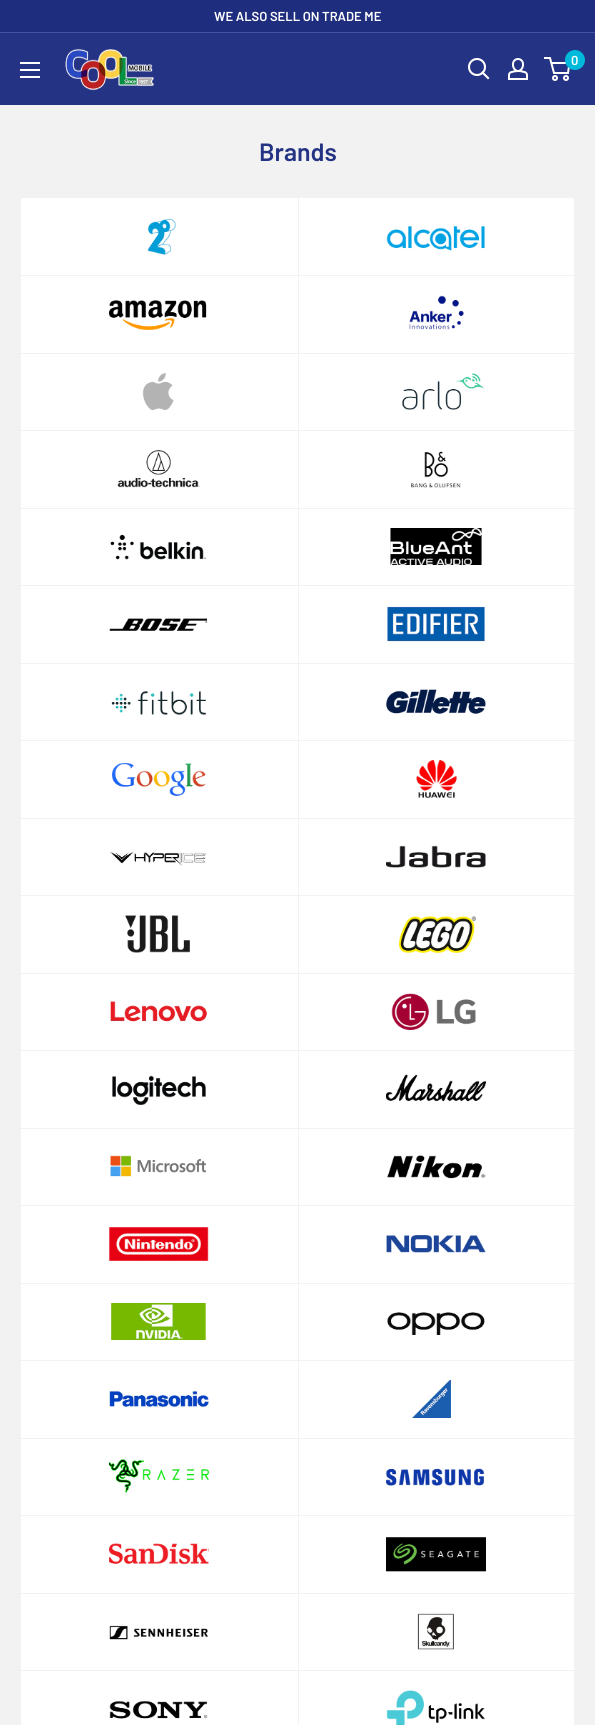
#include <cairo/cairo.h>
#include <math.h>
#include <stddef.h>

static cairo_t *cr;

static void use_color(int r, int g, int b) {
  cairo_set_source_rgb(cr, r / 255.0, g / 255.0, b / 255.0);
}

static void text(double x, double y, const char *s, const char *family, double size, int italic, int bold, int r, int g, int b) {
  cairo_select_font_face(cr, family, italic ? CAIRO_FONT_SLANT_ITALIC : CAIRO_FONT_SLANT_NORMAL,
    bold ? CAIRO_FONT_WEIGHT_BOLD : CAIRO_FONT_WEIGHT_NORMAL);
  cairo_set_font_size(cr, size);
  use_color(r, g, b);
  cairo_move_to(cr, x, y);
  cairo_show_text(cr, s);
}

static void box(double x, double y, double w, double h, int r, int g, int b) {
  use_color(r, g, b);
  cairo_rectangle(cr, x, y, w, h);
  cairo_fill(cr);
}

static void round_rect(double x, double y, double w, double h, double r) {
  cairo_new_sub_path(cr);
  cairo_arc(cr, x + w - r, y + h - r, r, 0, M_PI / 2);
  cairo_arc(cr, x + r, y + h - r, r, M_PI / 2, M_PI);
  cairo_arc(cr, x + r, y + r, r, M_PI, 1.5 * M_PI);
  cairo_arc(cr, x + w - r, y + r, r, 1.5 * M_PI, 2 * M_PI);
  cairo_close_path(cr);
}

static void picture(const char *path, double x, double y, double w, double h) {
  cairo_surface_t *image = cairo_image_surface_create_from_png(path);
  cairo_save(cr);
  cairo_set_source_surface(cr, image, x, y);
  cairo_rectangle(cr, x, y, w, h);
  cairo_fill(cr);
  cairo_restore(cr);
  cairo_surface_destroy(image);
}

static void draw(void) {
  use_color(242, 242, 242);
  cairo_paint(cr);
  box(0, 0, 595, 32, 30, 45, 125);
  box(0, 32, 595, 1, 70, 84, 159);
  box(0, 33, 595, 72, 36, 51, 131);
  picture("img_01.png", 65, 49, 89, 42);
  cairo_new_path(cr);
  cairo_move_to(cr, 488, 78);
  cairo_line_to(cr, 482.5, 72.5);
  use_color(255, 255, 255);
  cairo_set_line_width(cr, 2.1);
  cairo_set_line_cap(cr, CAIRO_LINE_CAP_SQUARE);
  cairo_stroke(cr);
  cairo_arc(cr, 477, 67, 8, 0, 2 * M_PI);
  cairo_set_line_cap(cr, CAIRO_LINE_CAP_BUTT);
  cairo_stroke(cr);
  picture("img_02.png", 508, 58, 20, 22);
  cairo_arc(cr, 555, 78, 2, 0, 2 * M_PI);
  cairo_set_line_width(cr, 2);
  cairo_stroke(cr);
  cairo_arc(cr, 566, 78, 2, 0, 2 * M_PI);
  cairo_stroke(cr);
  cairo_new_path(cr);
  cairo_move_to(cr, 551.5, 63);
  cairo_line_to(cr, 569.5, 63);
  cairo_line_to(cr, 568, 73);
  cairo_line_to(cr, 554, 73);
  cairo_line_to(cr, 550, 58);
  cairo_line_to(cr, 544, 58);
  cairo_stroke(cr);
  use_color(0, 186, 219);
  cairo_arc(cr, 575, 60, 10, 0, 2 * M_PI);
  cairo_fill(cr);
  picture("img_03.png", 20, 62, 20, 16);
  use_color(255, 255, 255);
  round_rect(20.5, 197.5, 554, 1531, 2.5);
  cairo_fill_preserve(cr);
  use_color(242, 242, 242);
  cairo_set_line_width(cr, 1);
  cairo_stroke(cr);
  box(21, 275, 553, 1, 242, 242, 242);
  box(298, 198, 1, 155, 242, 242, 242);
  picture("img_04.png", 147, 218, 29, 37);
  box(574, 198, 1, 1, 242, 242, 242);
  picture("img_05.png", 386, 226, 99, 25);
  picture("img_06.png", 409, 295, 55, 35);
  box(21, 353, 553, 1, 242, 242, 242);
  picture("img_07.png", 109, 300, 98, 30);
  box(21, 430, 553, 1, 242, 242, 242);
  box(298, 353, 1, 155, 242, 242, 242);
  picture("img_08.png", 142, 373, 32, 37);
  picture("img_09.png", 401, 373, 83, 37);
  box(21, 508, 553, 1, 242, 242, 242);
  picture("img_10.png", 117, 450, 83, 38);
  picture("img_11.png", 411, 451, 50, 37);
  box(21, 585, 553, 1, 242, 242, 242);
  box(298, 508, 1, 155, 242, 242, 242);
  picture("img_12.png", 110, 534, 96, 26);
  picture("img_13.png", 390, 528, 92, 37);
  picture("img_14.png", 387, 606, 98, 36);
  box(21, 663, 553, 1, 242, 242, 242);
  picture("img_15.png", 109, 618, 99, 13);
  box(21, 740, 553, 1, 242, 242, 242);
  box(298, 663, 1, 155, 242, 242, 242);
  picture("img_16.png", 111, 691, 95, 24);
  picture("img_17.png", 386, 689, 100, 25);
  picture("img_18.png", 416, 760, 41, 38);
  box(21, 818, 553, 1, 242, 242, 242);
  picture("img_19.png", 112, 762, 94, 34);
  box(21, 895, 553, 1, 242, 242, 242);
  box(298, 818, 1, 155, 242, 242, 242);
  picture("img_20.png", 110, 852, 97, 14);
  picture("img_21.png", 386, 845, 100, 23);
  box(21, 973, 553, 1, 242, 242, 242);
  picture("img_22.png", 125, 915, 65, 38);
  picture("img_23.png", 398, 916, 78, 37);
  box(21, 1050, 553, 1, 242, 242, 242);
  box(298, 973, 1, 155, 242, 242, 242);
  picture("img_24.png", 110, 1001, 97, 21);
  picture("img_25.png", 391, 993, 85, 37);
  picture("img_26.png", 386, 1074, 100, 28);
  box(21, 1128, 553, 1, 242, 242, 242);
  picture("img_27.png", 112, 1075, 94, 30);
  box(21, 1205, 553, 1, 242, 242, 242);
  box(298, 1128, 1, 155, 242, 242, 242);
  picture("img_28.png", 110, 1155, 96, 22);
  picture("img_29.png", 387, 1155, 99, 24);
  box(21, 1283, 553, 1, 242, 242, 242);
  picture("img_30.png", 109, 1227, 100, 34);
  picture("img_31.png", 386, 1235, 100, 18);
  box(21, 1360, 553, 1, 242, 242, 242);
  box(298, 1283, 1, 155, 242, 242, 242);
  picture("img_32.png", 111, 1303, 95, 37);
  picture("img_33.png", 387, 1312, 98, 23);
  picture("img_34.png", 412, 1380, 39, 38);
  box(21, 1438, 553, 1, 242, 242, 242);
  picture("img_35.png", 109, 1390, 100, 19);
  box(21, 1515, 553, 1, 242, 242, 242);
  box(298, 1438, 1, 155, 242, 242, 242);
  picture("img_36.png", 109, 1459, 100, 34);
  picture("img_37.png", 386, 1468, 98, 18);
  picture("img_38.png", 386, 1537, 100, 35);
  box(21, 1593, 553, 1, 242, 242, 242);
  picture("img_39.png", 109, 1543, 100, 22);
  box(21, 1670, 553, 1, 242, 242, 242);
  box(298, 1593, 1, 132, 242, 242, 242);
  picture("img_40.png", 109, 1625, 100, 15);
  picture("img_41.png", 417, 1613, 37, 37);
  picture("img_42.png", 109, 1700, 99, 19);
  picture("img_43.png", 386, 1690, 99, 35);
  text(214, 21, "WE ALSO SELL ON TRADE ME", "Barlow SemiBold", 13, 0, 0, 255, 255, 255);
  text(571, 65, "0", "Barlow SemiBold", 13, 0, 0, 255, 255, 255);
  text(259, 161, "Brands", "Barlow SemiBold", 25, 0, 0, 36, 51, 131);
}

int main(void) {
  cairo_surface_t *surface = cairo_image_surface_create(CAIRO_FORMAT_RGB24, 595, 1725);
  cr = cairo_create(surface);
  cairo_font_options_t *options = cairo_font_options_create();
  cairo_font_options_set_hint_metrics(options, CAIRO_HINT_METRICS_OFF);
  cairo_font_options_set_hint_style(options, CAIRO_HINT_STYLE_NONE);
  cairo_set_font_options(cr, options);
  cairo_set_miter_limit(cr, 4);
  draw();
  cairo_surface_write_to_png(surface, "out.png");
  cairo_font_options_destroy(options);
  cairo_destroy(cr);
  cairo_surface_destroy(surface);
  return 0;
}
